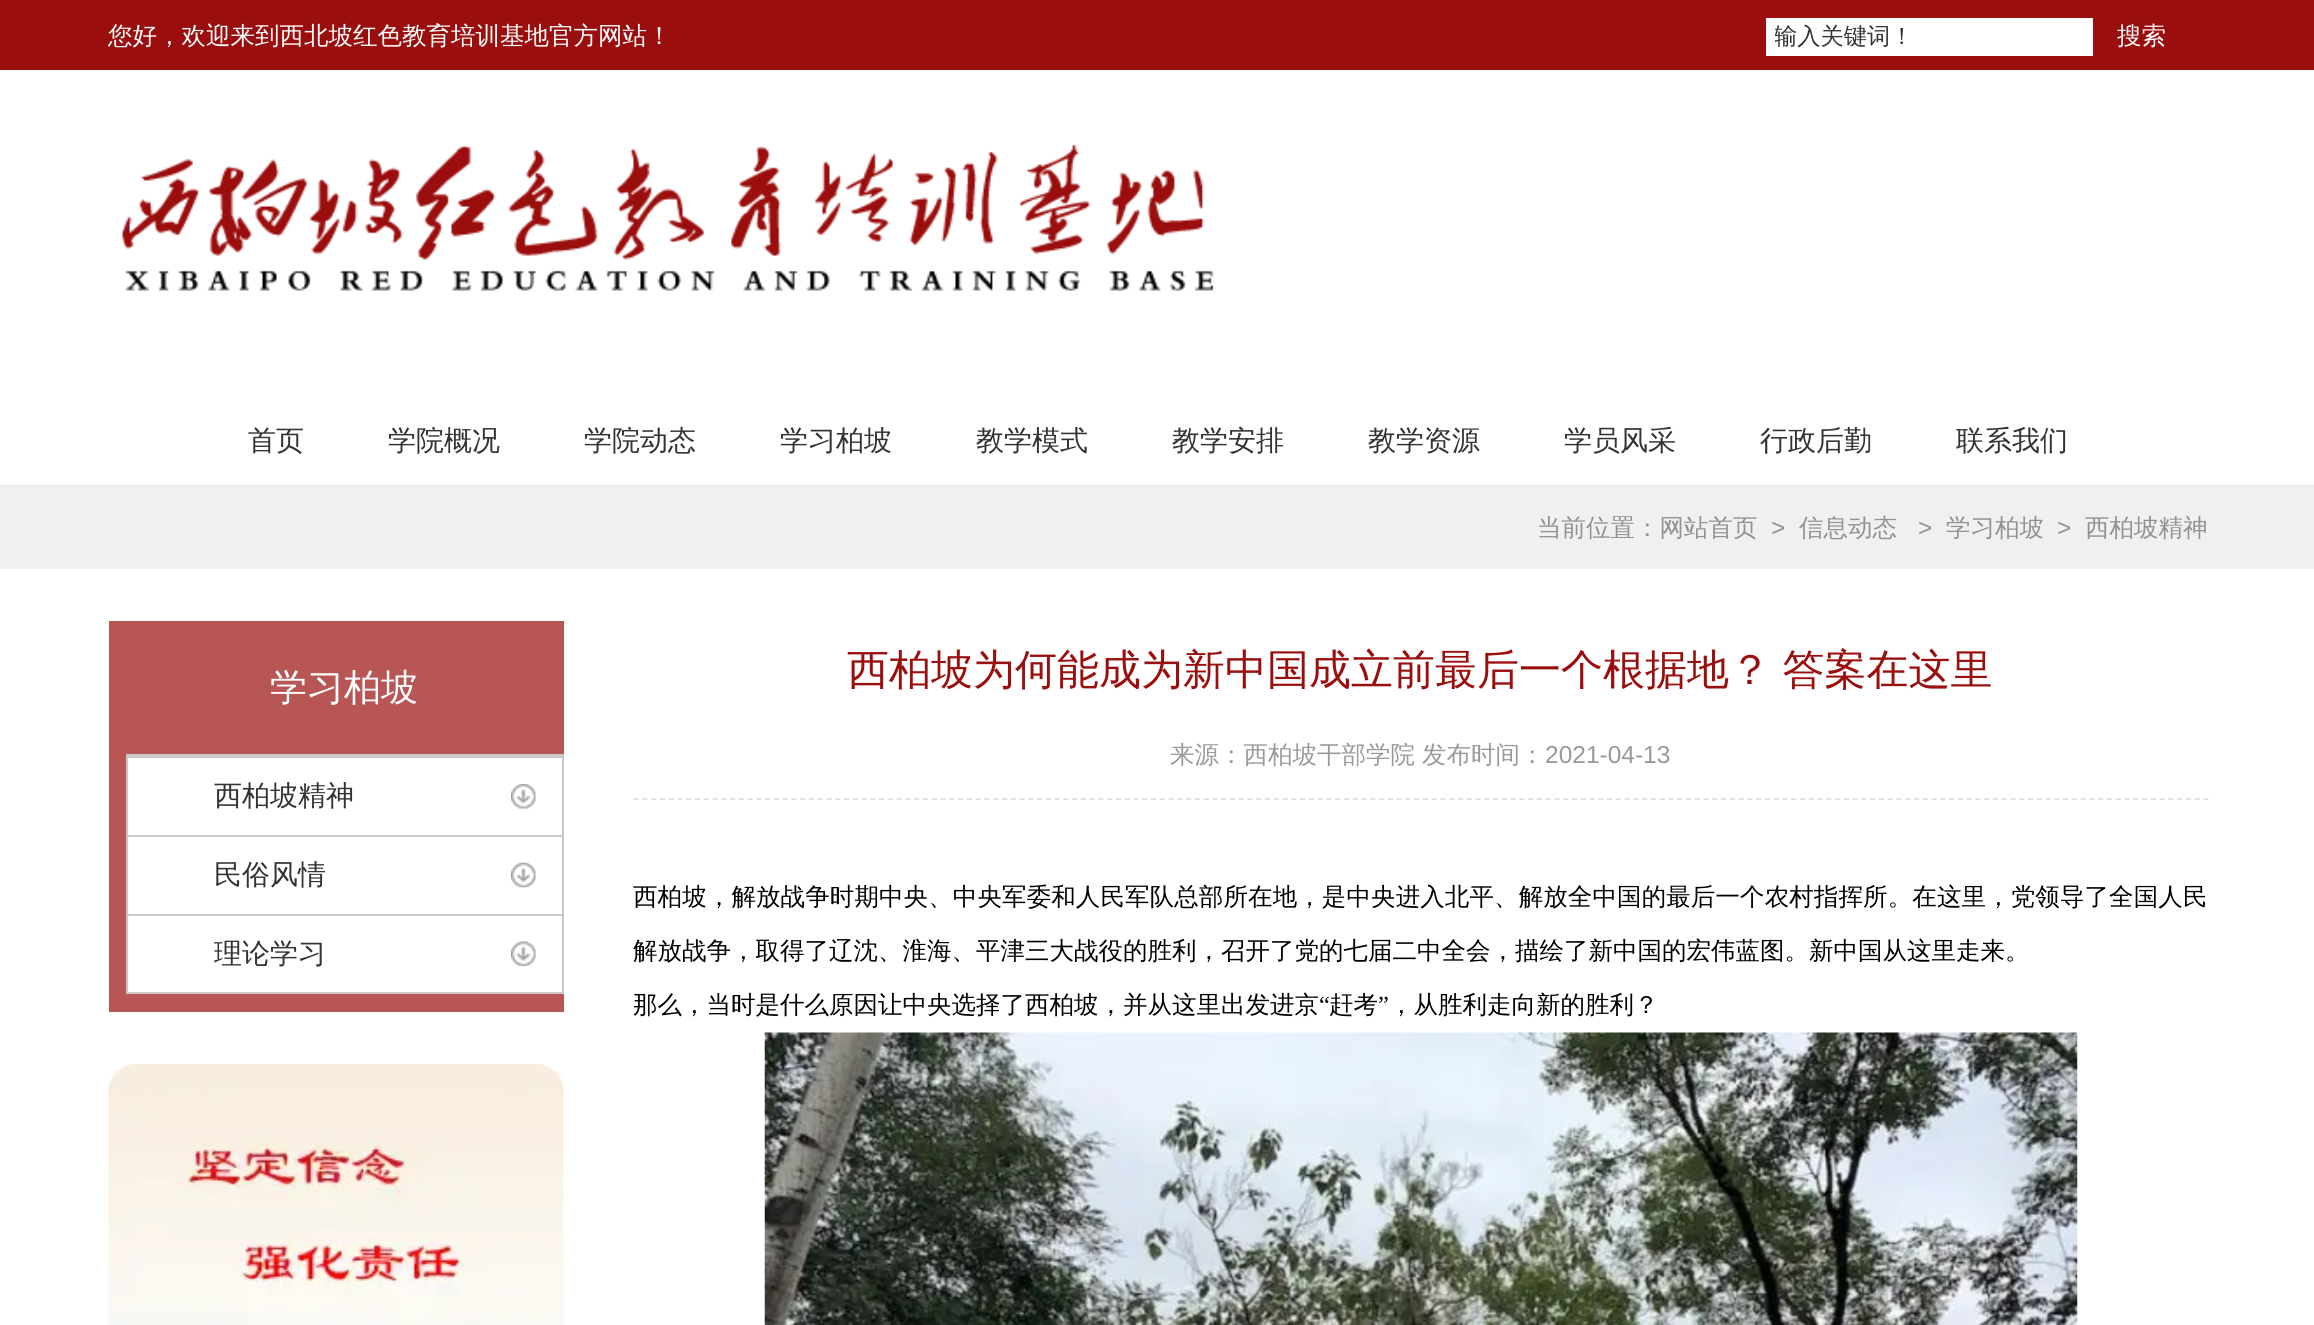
#include <cairo/cairo.h>
#include <math.h>
#include <stddef.h>

static cairo_t *cr;

static void use_color(int r, int g, int b) {
  cairo_set_source_rgb(cr, r / 255.0, g / 255.0, b / 255.0);
}

static void text(double x, double y, const char *s, const char *family, double size, int italic, int bold, int r, int g, int b) {
  cairo_select_font_face(cr, family, italic ? CAIRO_FONT_SLANT_ITALIC : CAIRO_FONT_SLANT_NORMAL,
    bold ? CAIRO_FONT_WEIGHT_BOLD : CAIRO_FONT_WEIGHT_NORMAL);
  cairo_set_font_size(cr, size);
  use_color(r, g, b);
  cairo_move_to(cr, x, y);
  cairo_show_text(cr, s);
}

static void spaced_text(double x, double y, const char *s, double letter, double word) {
  cairo_move_to(cr, x, y);
  while (*s) {
    char ch[5] = {0};
    int n = 0;
    do ch[n++] = *s++; while ((*s & 0xC0) == 0x80);
    cairo_show_text(cr, ch);
    cairo_rel_move_to(cr, letter + word * (*ch == ' '), 0);
  }
}

static void box(double x, double y, double w, double h, int r, int g, int b) {
  use_color(r, g, b);
  cairo_rectangle(cr, x, y, w, h);
  cairo_fill(cr);
}

static void picture(const char *path, double x, double y, double w, double h) {
  cairo_surface_t *image = cairo_image_surface_create_from_png(path);
  cairo_save(cr);
  cairo_set_source_surface(cr, image, x, y);
  cairo_rectangle(cr, x, y, w, h);
  cairo_fill(cr);
  cairo_restore(cr);
  cairo_surface_destroy(image);
}

static void draw(void) {
  use_color(255, 255, 255);
  cairo_paint(cr);
  box(0, 0, 2314, 70, 154, 14, 14);
  box(1766, 18, 327, 38, 255, 255, 255);
  box(0, 485, 2314, 2, 235, 235, 235);
  picture("img_01.png", 122, 144, 1092, 147);
  box(0, 487, 2314, 82, 240, 240, 240);
  box(109, 621, 455, 391, 184, 86, 86);
  box(128, 758, 434, 234, 255, 255, 255);
  box(126, 754, 438, 4, 201, 201, 201);
  box(562, 754, 2, 240, 201, 201, 201);
  box(126, 754, 2, 240, 201, 201, 201);
  box(128, 835, 434, 2, 201, 201, 201);
  picture("img_02.png", 511, 784, 25, 25);
  box(128, 914, 434, 2, 201, 201, 201);
  picture("img_03.png", 511, 862, 25, 26);
  box(128, 992, 434, 2, 201, 201, 201);
  picture("img_04.png", 511, 941, 25, 25);
  picture("img_05.png", 108, 1064, 456, 261);
  cairo_new_path(cr);
  cairo_move_to(cr, 633.5, 799);
  cairo_line_to(cr, 2208.5, 799);
  use_color(223, 223, 223);
  cairo_set_line_width(cr, 1.8);
  cairo_set_dash(cr, (double[]){5.25, 3.52}, 2, 0);
  cairo_stroke(cr);
  picture("img_06.png", 764, 1032, 1314, 293);
  text(108, 44, "您好，欢迎来到西北坡红色教育培训基地官方网站！", "WenQuanYi Zen Hei Medium", 24.5, 0, 0, 255, 255, 255);
  cairo_save(cr);
  cairo_rectangle(cr, 1775, 18, 309, 38);
  cairo_clip(cr);
  text(1774, 44, "输入关键词！", "WenQuanYi Zen Hei Medium", 23.25, 0, 0, 51, 51, 51);
  cairo_restore(cr);
  text(2117, 44, "搜索", "WenQuanYi Zen Hei Medium", 24.5, 0, 0, 255, 255, 255);
  text(248, 450, "首页", "WenQuanYi Zen Hei Medium", 28, 0, 0, 51, 51, 51);
  text(388, 450, "学院概况", "WenQuanYi Zen Hei Medium", 28, 0, 0, 51, 51, 51);
  text(584, 450, "学院动态", "WenQuanYi Zen Hei Medium", 28, 0, 0, 51, 51, 51);
  text(780, 450, "学习柏坡", "WenQuanYi Zen Hei Medium", 28, 0, 0, 51, 51, 51);
  text(976, 450, "教学模式", "WenQuanYi Zen Hei Medium", 28, 0, 0, 51, 51, 51);
  text(1172, 450, "教学安排", "WenQuanYi Zen Hei Medium", 28, 0, 0, 51, 51, 51);
  text(1368, 450, "教学资源", "WenQuanYi Zen Hei Medium", 28, 0, 0, 51, 51, 51);
  text(1564, 450, "学员风采", "WenQuanYi Zen Hei Medium", 28, 0, 0, 51, 51, 51);
  text(1760, 450, "行政后勤", "WenQuanYi Zen Hei Medium", 28, 0, 0, 51, 51, 51);
  text(1956, 450, "联系我们", "WenQuanYi Zen Hei Medium", 28, 0, 0, 51, 51, 51);
  text(1537, 536, "当前位置：网站首页", "WenQuanYi Zen Hei Medium", 24.5, 0, 0, 145, 145, 145);
  text(1771, 536, ">", "Liberation Sans", 24.5, 0, 0, 145, 145, 145);
  text(1799, 536, "信息动态", "WenQuanYi Zen Hei Medium", 24.5, 0, 0, 145, 145, 145);
  text(1918, 536, ">", "Liberation Sans", 24.5, 0, 0, 145, 145, 145);
  text(1946, 536, "学习柏坡", "WenQuanYi Zen Hei Medium", 24.5, 0, 0, 145, 145, 145);
  text(2057, 536, ">", "Liberation Sans", 24.5, 0, 0, 145, 145, 145);
  text(2085, 536, "西柏坡精神", "WenQuanYi Zen Hei Medium", 24.5, 0, 0, 145, 145, 145);
  text(270, 700, "学习柏坡", "WenQuanYi Zen Hei Medium", 37, 0, 0, 255, 255, 255);
  text(214, 805, "西柏坡精神", "WenQuanYi Zen Hei Medium", 28, 0, 0, 51, 51, 51);
  text(214, 884, "民俗风情", "WenQuanYi Zen Hei Medium", 28, 0, 0, 51, 51, 51);
  text(214, 963, "理论学习", "WenQuanYi Zen Hei Medium", 28, 0, 0, 51, 51, 51);
  cairo_set_font_size(cr, 42);
  use_color(154, 14, 14);
  spaced_text(847, 684, "西柏坡为何能成为新中国成立前最后一个根据地？ 答案在这里", 0, -1);
  text(1170, 763, "来源：西柏坡干部学院", "WenQuanYi Zen Hei Medium", 24.5, 0, 0, 153, 153, 153);
  text(1422, 763, "发布时间：", "WenQuanYi Zen Hei Medium", 24.5, 0, 0, 153, 153, 153);
  text(1545, 763, "2021-04-13", "Liberation Sans", 24.5, 0, 0, 153, 153, 153);
  cairo_select_font_face(cr, "WenQuanYi Zen Hei Medium", CAIRO_FONT_SLANT_NORMAL, CAIRO_FONT_WEIGHT_NORMAL);
  use_color(0, 0, 0);
  spaced_text(633, 905, "西柏坡，解放战争时期中央、中央军委和人民军队总部所在地，是中央进入北平、解放全中国的最后一个农村指挥所。在这里，党领导了全国人民", 0.1, 0);
  text(633, 959, "解放战争，取得了辽沈、淮海、平津三大战役的胜利，召开了党的七届二中全会，描绘了新中国的宏伟蓝图。新中国从这里走来。", "WenQuanYi Zen Hei Medium", 24.5, 0, 0, 0, 0, 0);
  text(633, 1013, "那么，当时是什么原因让中央选择了西柏坡，并从这里出发进京", "WenQuanYi Zen Hei Medium", 24.5, 0, 0, 0, 0, 0);
  text(1319, 1013, "“", "Liberation Serif", 24.5, 0, 0, 0, 0, 0);
  text(1329, 1013, "赶考", "WenQuanYi Zen Hei Medium", 24.5, 0, 0, 0, 0, 0);
  text(1378, 1013, "”", "Liberation Serif", 24.5, 0, 0, 0, 0, 0);
  text(1389, 1013, "，从胜利走向新的胜利？", "WenQuanYi Zen Hei Medium", 24.5, 0, 0, 0, 0, 0);
}

int main(void) {
  cairo_surface_t *surface = cairo_image_surface_create(CAIRO_FORMAT_RGB24, 2314, 1325);
  cr = cairo_create(surface);
  cairo_font_options_t *options = cairo_font_options_create();
  cairo_font_options_set_hint_metrics(options, CAIRO_HINT_METRICS_OFF);
  cairo_font_options_set_hint_style(options, CAIRO_HINT_STYLE_NONE);
  cairo_set_font_options(cr, options);
  cairo_set_miter_limit(cr, 4);
  draw();
  cairo_surface_write_to_png(surface, "out.png");
  cairo_font_options_destroy(options);
  cairo_destroy(cr);
  cairo_surface_destroy(surface);
  return 0;
}
